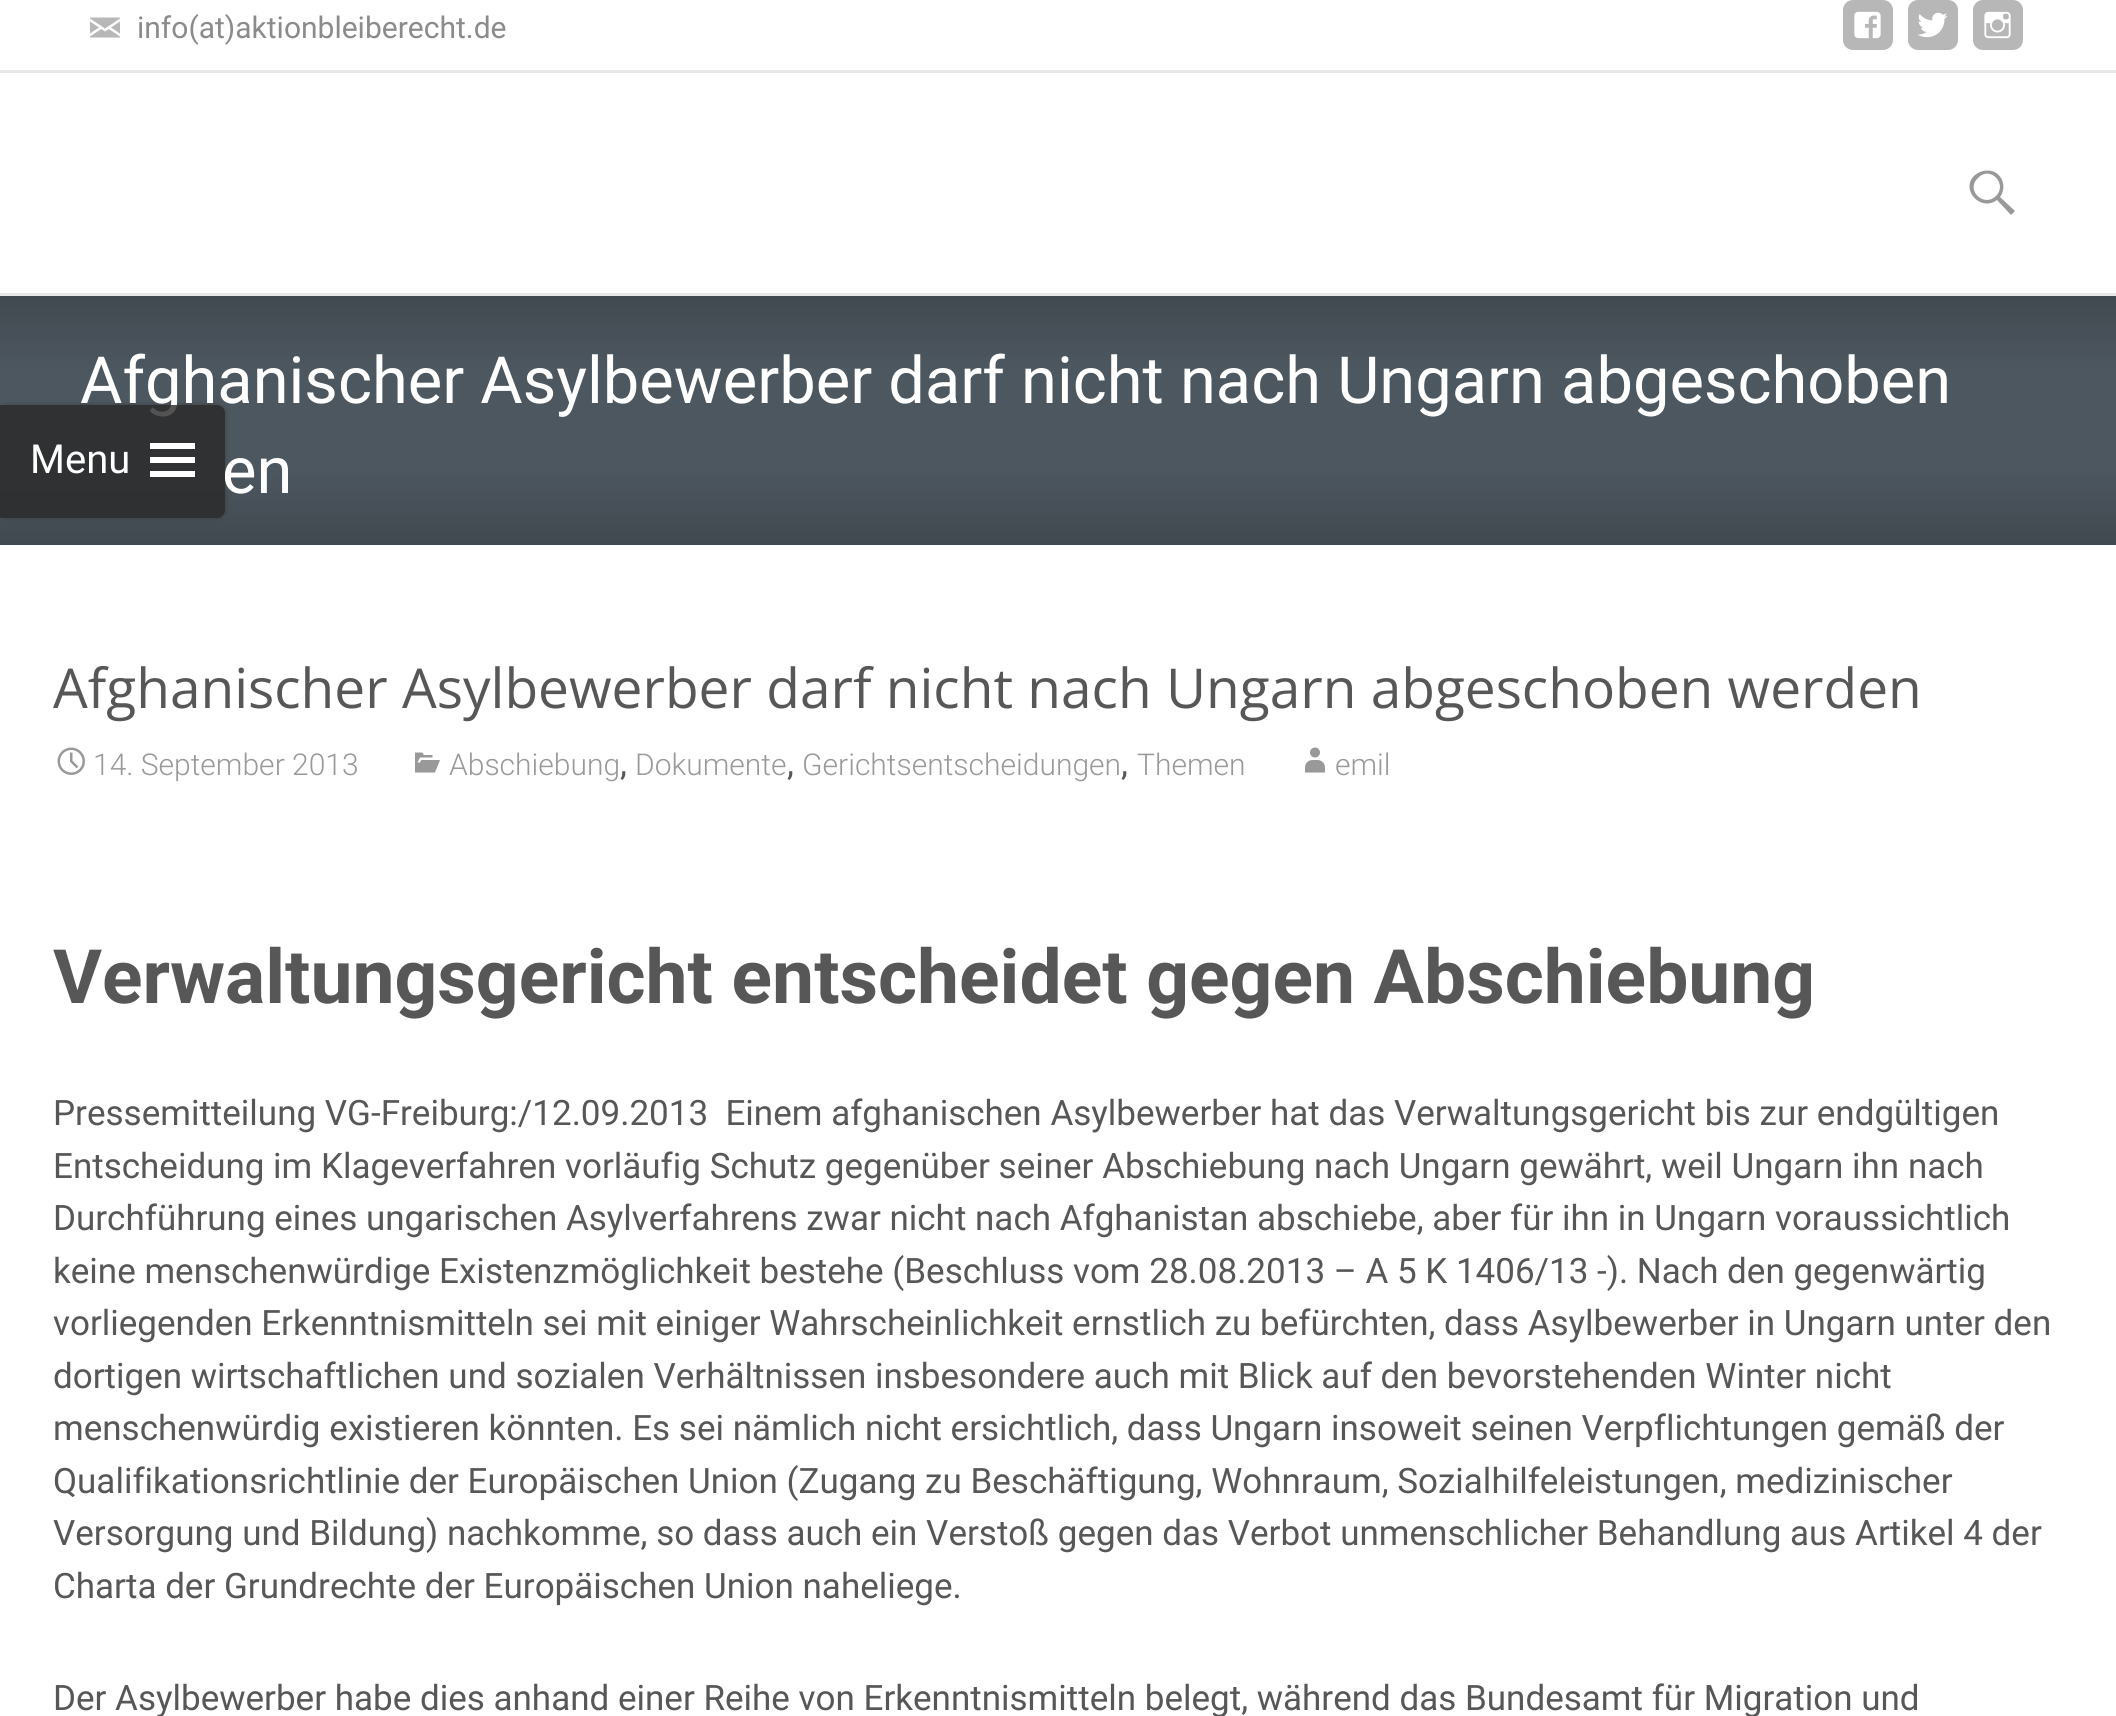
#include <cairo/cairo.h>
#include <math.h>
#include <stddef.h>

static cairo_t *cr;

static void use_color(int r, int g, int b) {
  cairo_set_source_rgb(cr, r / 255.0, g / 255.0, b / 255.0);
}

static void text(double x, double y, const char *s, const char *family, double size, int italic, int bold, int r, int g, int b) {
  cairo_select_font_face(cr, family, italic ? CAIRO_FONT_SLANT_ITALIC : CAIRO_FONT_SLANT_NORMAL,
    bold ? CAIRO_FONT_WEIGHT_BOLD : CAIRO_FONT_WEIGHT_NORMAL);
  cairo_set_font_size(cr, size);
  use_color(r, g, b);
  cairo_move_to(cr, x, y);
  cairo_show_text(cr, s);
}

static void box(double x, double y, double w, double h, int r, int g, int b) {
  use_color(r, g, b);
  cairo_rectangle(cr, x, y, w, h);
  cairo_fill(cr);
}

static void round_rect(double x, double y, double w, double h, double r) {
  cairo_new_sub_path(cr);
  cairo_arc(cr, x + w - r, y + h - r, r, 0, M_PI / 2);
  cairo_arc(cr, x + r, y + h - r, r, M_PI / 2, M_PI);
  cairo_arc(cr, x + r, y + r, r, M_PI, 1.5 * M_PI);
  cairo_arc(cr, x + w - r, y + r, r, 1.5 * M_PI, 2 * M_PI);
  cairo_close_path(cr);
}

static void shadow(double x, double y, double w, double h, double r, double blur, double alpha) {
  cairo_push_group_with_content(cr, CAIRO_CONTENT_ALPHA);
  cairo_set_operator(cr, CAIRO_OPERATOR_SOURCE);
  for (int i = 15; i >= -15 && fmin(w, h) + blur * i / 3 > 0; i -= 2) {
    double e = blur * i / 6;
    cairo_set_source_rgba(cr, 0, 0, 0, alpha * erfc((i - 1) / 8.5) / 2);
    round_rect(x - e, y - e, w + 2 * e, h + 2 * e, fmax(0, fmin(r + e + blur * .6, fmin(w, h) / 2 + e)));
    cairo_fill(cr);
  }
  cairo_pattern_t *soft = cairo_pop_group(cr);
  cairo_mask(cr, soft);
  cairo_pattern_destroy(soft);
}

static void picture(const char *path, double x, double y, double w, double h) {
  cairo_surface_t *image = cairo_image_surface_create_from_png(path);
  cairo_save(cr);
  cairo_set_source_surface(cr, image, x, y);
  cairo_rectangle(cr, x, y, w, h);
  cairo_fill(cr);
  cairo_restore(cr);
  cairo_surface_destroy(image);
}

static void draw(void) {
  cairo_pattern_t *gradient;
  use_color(255, 255, 255);
  cairo_paint(cr);
  box(0, 70, 2116, 3, 231, 231, 231);
  picture("img_01.png", 90, 17, 30, 21);
  use_color(183, 183, 183);
  round_rect(1843, 0, 50, 50, 10);
  cairo_fill(cr);
  picture("img_02.png", 1854, 11, 27, 28);
  round_rect(1908, 0, 50, 50, 10);
  cairo_fill(cr);
  picture("img_03.png", 1917, 12, 31, 26);
  round_rect(1973, 0, 50, 50, 10);
  cairo_fill(cr);
  picture("img_04.png", 1984, 11, 27, 28);
  gradient = cairo_pattern_create_linear(1059, 295, 1059, 545);
  cairo_pattern_add_color_stop_rgba(gradient, 0, 0.255, 0.286, 0.314, 1);
  cairo_pattern_add_color_stop_rgba(gradient, 0.3, 0.302, 0.341, 0.373, 1);
  cairo_pattern_add_color_stop_rgba(gradient, 0.69, 0.302, 0.341, 0.373, 1);
  cairo_pattern_add_color_stop_rgba(gradient, 1, 0.255, 0.286, 0.314, 1);
  cairo_set_source(cr, gradient);
  cairo_pattern_destroy(gradient);
  cairo_rectangle(cr, 0, 296, 2116, 249);
  cairo_fill(cr);
  box(0, 293, 2116, 3, 231, 231, 231);
  use_color(153, 153, 153);
  cairo_new_path(cr);
  cairo_move_to(cr, 1971, 193);
  cairo_curve_to(cr, 1962, 172, 1997, 160, 2003, 183);
  cairo_curve_to(cr, 2004, 188, 2003, 193, 2000, 197);
  cairo_line_to(cr, 2015, 211);
  cairo_line_to(cr, 2011, 215);
  cairo_line_to(cr, 1997, 200);
  cairo_curve_to(cr, 1988, 207, 1976, 203, 1971, 193);
  cairo_close_path(cr);
  cairo_move_to(cr, 1978, 178);
  cairo_curve_to(cr, 1965, 190, 1984, 208, 1996, 196);
  cairo_curve_to(cr, 2008, 184, 1990, 165, 1978, 178);
  cairo_close_path(cr);
  cairo_fill(cr);
  cairo_save(cr);
  cairo_set_fill_rule(cr, CAIRO_FILL_RULE_EVEN_ODD);
  cairo_new_path(cr);
  cairo_move_to(cr, 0, 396);
  cairo_line_to(cr, 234, 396);
  cairo_line_to(cr, 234, 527);
  cairo_line_to(cr, 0, 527);
  cairo_close_path(cr);
  cairo_move_to(cr, 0, 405);
  cairo_line_to(cr, 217, 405);
  cairo_curve_to(cr, 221.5, 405, 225, 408.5, 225, 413);
  cairo_line_to(cr, 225, 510);
  cairo_curve_to(cr, 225, 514.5, 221.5, 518, 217, 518);
  cairo_line_to(cr, 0, 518);
  cairo_close_path(cr);
  cairo_clip(cr);
  use_color(50, 50, 50);
  shadow(0, 405, 225, 113, 8, 2.5, 0.64);
  cairo_restore(cr);
  picture("img_05.png", 57, 747, 28, 28);
  picture("img_06.png", 415, 752, 25, 21);
  picture("img_07.png", 1305, 747, 20, 26);
  text(137, 38, "info(at)aktionbleiberecht.de", "Roboto", 30, 0, 0, 139, 139, 139);
  text(80, 403, "Afghanischer Asylbewerber darf nicht nach Ungarn abgeschoben", "Roboto", 65, 0, 0, 255, 255, 255);
  text(222, 493, "en", "Roboto", 65, 0, 0, 255, 255, 255);
  cairo_set_source_rgba(cr, 0.157, 0.157, 0.157, 0.8);
  cairo_new_path(cr);
  cairo_move_to(cr, 0, 405);
  cairo_line_to(cr, 217, 405);
  cairo_curve_to(cr, 221.5, 405, 225, 408.5, 225, 413);
  cairo_line_to(cr, 225, 510);
  cairo_curve_to(cr, 225, 514.5, 221.5, 518, 217, 518);
  cairo_line_to(cr, 0, 518);
  cairo_close_path(cr);
  cairo_fill(cr);
  text(30, 473, "Menu", "Roboto", 40, 0, 0, 255, 255, 255);
  cairo_new_path(cr);
  cairo_move_to(cr, 150, 477);
  cairo_line_to(cr, 150, 471);
  cairo_line_to(cr, 195, 471);
  cairo_line_to(cr, 195, 477);
  cairo_close_path(cr);
  cairo_move_to(cr, 150, 463);
  cairo_line_to(cr, 150, 457);
  cairo_line_to(cr, 195, 457);
  cairo_line_to(cr, 195, 463);
  cairo_close_path(cr);
  cairo_move_to(cr, 150, 449);
  cairo_line_to(cr, 150, 443);
  cairo_line_to(cr, 195, 443);
  cairo_line_to(cr, 195, 449);
  cairo_close_path(cr);
  cairo_fill(cr);
  text(53, 708, "Afghanischer Asylbewerber darf nicht nach Ungarn abgeschoben werden", "Open Sans", 55, 0, 0, 87, 87, 87);
  text(93, 775, "14. September 2013", "Roboto Light", 30, 0, 0, 153, 153, 153);
  text(449, 775, "Abschiebung", "Roboto Light", 30, 0, 0, 153, 153, 153);
  text(620, 775, ",", "Roboto", 35, 0, 0, 87, 87, 87);
  text(635, 775, "Dokumente", "Roboto Light", 30, 0, 0, 153, 153, 153);
  text(787, 775, ",", "Roboto", 35, 0, 0, 87, 87, 87);
  text(802, 775, "Gerichtsentscheidungen", "Roboto Light", 30, 0, 0, 153, 153, 153);
  text(1121, 775, ",", "Roboto", 35, 0, 0, 87, 87, 87);
  text(1137, 775, "Themen", "Roboto Light", 30, 0, 0, 153, 153, 153);
  text(1335, 775, "emil", "Roboto Light", 30, 0, 0, 153, 153, 153);
  text(53, 1003, "Verwaltungsgericht entscheidet gegen Abschiebung", "Roboto", 75, 0, 1, 87, 87, 87);
  text(53, 1125, "Pressemitteilung VG-Freiburg:/12.09.2013  Einem afghanischen Asylbewerber hat das Verwaltungsgericht bis zur endgültigen", "Roboto", 35, 0, 0, 87, 87, 87);
  text(53, 1178, "Entscheidung im Klageverfahren vorläufig Schutz gegenüber seiner Abschiebung nach Ungarn gewährt, weil Ungarn ihn nach", "Roboto", 35, 0, 0, 87, 87, 87);
  text(53, 1230, "Durchführung eines ungarischen Asylverfahrens zwar nicht nach Afghanistan abschiebe, aber für ihn in Ungarn voraussichtlich", "Roboto", 35, 0, 0, 87, 87, 87);
  text(53, 1283, "keine menschenwürdige Existenzmöglichkeit bestehe (Beschluss vom 28.08.2013 – A 5 K 1406/13 -). Nach den gegenwärtig", "Roboto", 35, 0, 0, 87, 87, 87);
  text(53, 1335, "vorliegenden Erkenntnismitteln sei mit einiger Wahrscheinlichkeit ernstlich zu befürchten, dass Asylbewerber in Ungarn unter den", "Roboto", 35, 0, 0, 87, 87, 87);
  text(53, 1388, "dortigen wirtschaftlichen und sozialen Verhältnissen insbesondere auch mit Blick auf den bevorstehenden Winter nicht", "Roboto", 35, 0, 0, 87, 87, 87);
  text(53, 1440, "menschenwürdig existieren könnten. Es sei nämlich nicht ersichtlich, dass Ungarn insoweit seinen Verpflichtungen gemäß der", "Roboto", 35, 0, 0, 87, 87, 87);
  text(53, 1493, "Qualifikationsrichtlinie der Europäischen Union (Zugang zu Beschäftigung, Wohnraum, Sozialhilfeleistungen, medizinischer", "Roboto", 35, 0, 0, 87, 87, 87);
  text(53, 1545, "Versorgung und Bildung) nachkomme, so dass auch ein Verstoß gegen das Verbot unmenschlicher Behandlung aus Artikel 4 der", "Roboto", 35, 0, 0, 87, 87, 87);
  text(53, 1598, "Charta der Grundrechte der Europäischen Union naheliege.", "Roboto", 35, 0, 0, 87, 87, 87);
  text(53, 1710, "Der Asylbewerber habe dies anhand einer Reihe von Erkenntnismitteln belegt, während das Bundesamt für Migration und", "Roboto", 35, 0, 0, 87, 87, 87);
}

int main(void) {
  cairo_surface_t *surface = cairo_image_surface_create(CAIRO_FORMAT_RGB24, 2116, 1716);
  cr = cairo_create(surface);
  cairo_font_options_t *options = cairo_font_options_create();
  cairo_font_options_set_hint_metrics(options, CAIRO_HINT_METRICS_OFF);
  cairo_font_options_set_hint_style(options, CAIRO_HINT_STYLE_NONE);
  cairo_set_font_options(cr, options);
  cairo_set_miter_limit(cr, 4);
  draw();
  cairo_surface_write_to_png(surface, "out.png");
  cairo_font_options_destroy(options);
  cairo_destroy(cr);
  cairo_surface_destroy(surface);
  return 0;
}
